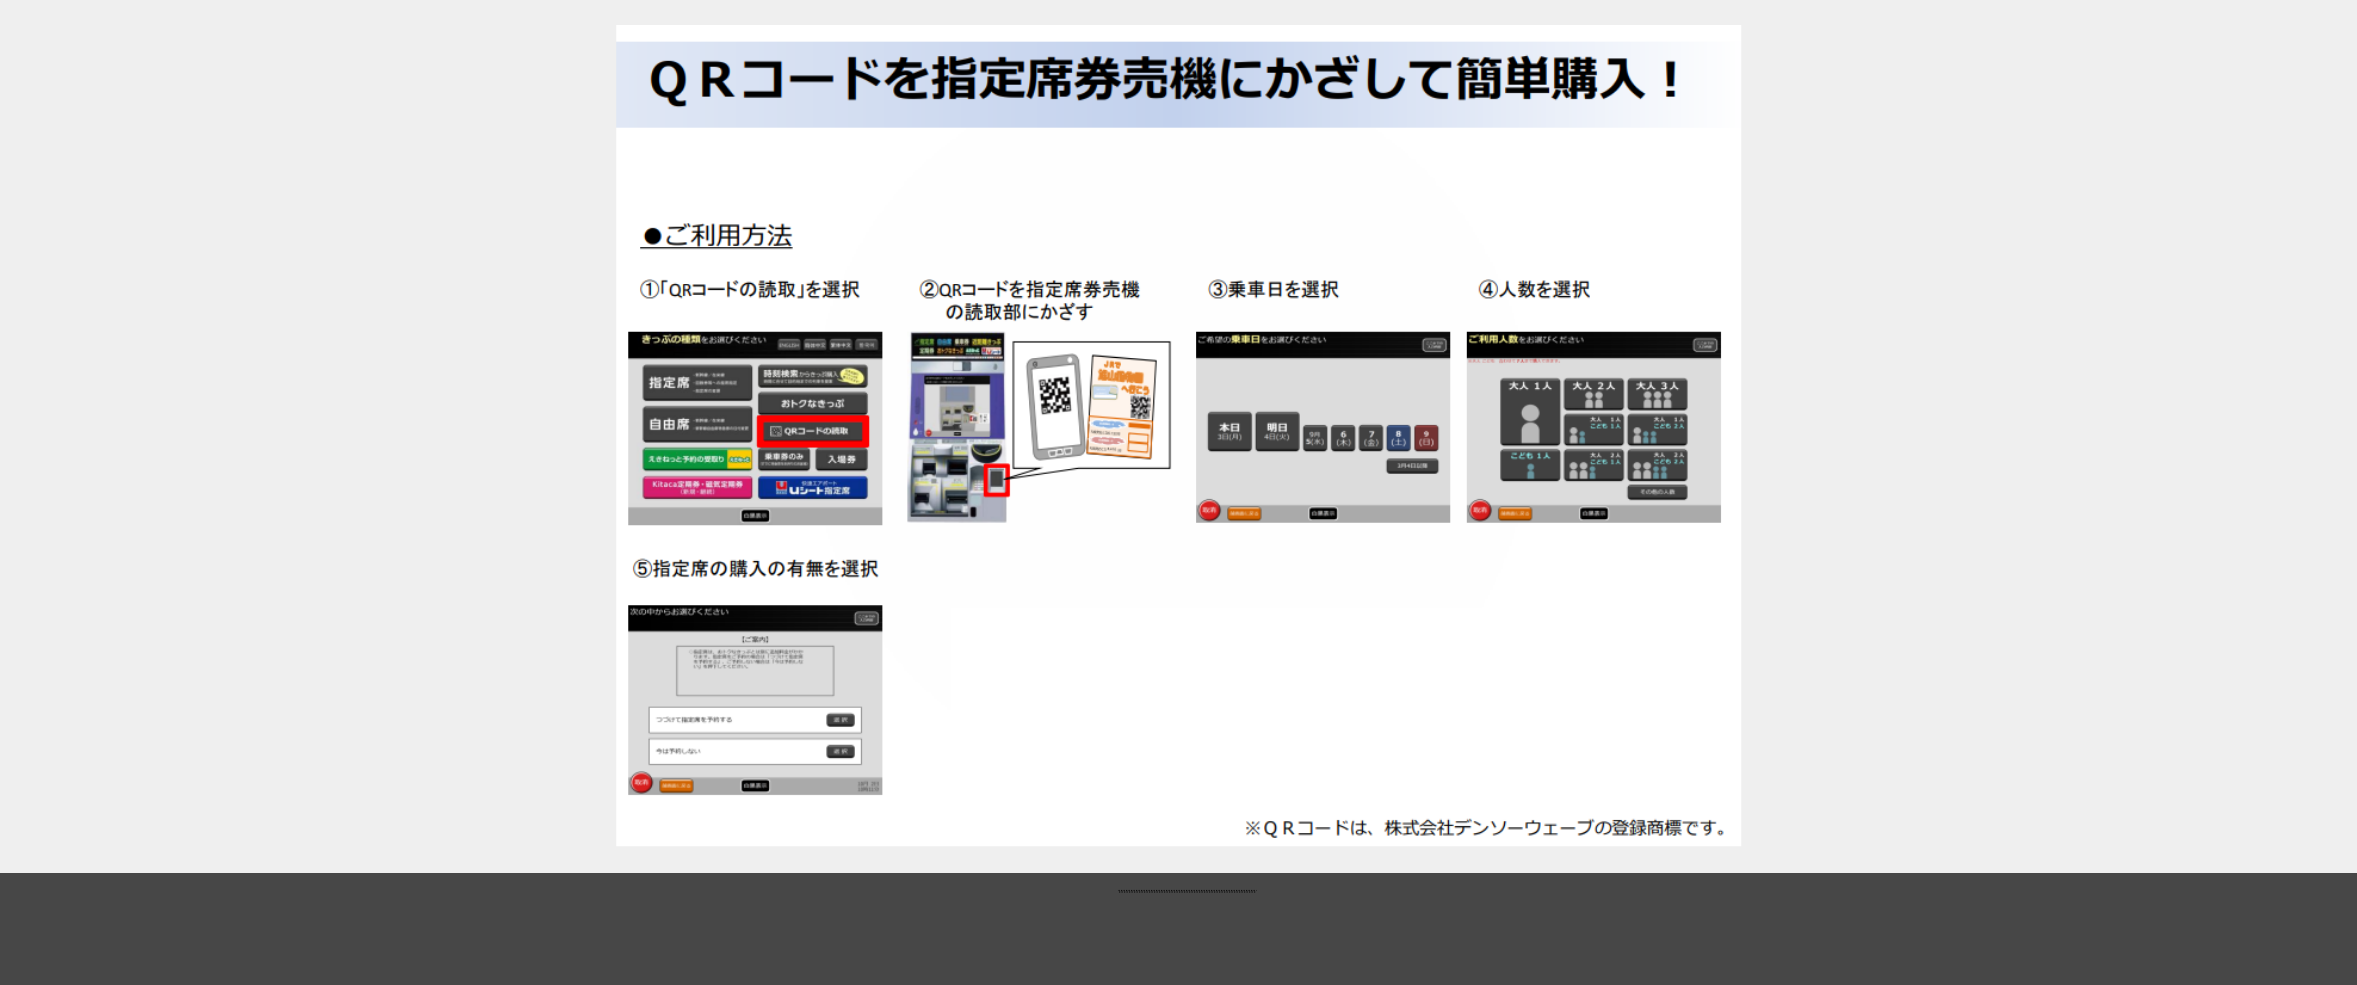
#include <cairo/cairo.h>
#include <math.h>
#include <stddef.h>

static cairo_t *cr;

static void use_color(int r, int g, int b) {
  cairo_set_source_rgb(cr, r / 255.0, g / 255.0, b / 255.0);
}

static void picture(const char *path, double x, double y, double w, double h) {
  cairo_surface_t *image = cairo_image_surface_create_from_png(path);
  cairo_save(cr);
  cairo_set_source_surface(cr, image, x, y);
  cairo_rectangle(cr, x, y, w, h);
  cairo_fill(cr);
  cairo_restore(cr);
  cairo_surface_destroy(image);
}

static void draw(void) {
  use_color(239, 239, 239);
  cairo_paint(cr);
  picture("img_01.png", 616, 25, 1126, 822);
  cairo_new_path(cr);
  cairo_move_to(cr, 1119, 892);
  cairo_line_to(cr, 1256, 892);
  use_color(51, 51, 51);
  cairo_set_line_width(cr, 1.2);
  cairo_set_dash(cr, (double[]){1.25, 1.25}, 2, 0);
  cairo_stroke(cr);
  cairo_new_path(cr);
  cairo_move_to(cr, 1118.5, 890.5);
  cairo_line_to(cr, 1256.5, 890.5);
  cairo_stroke(cr);
  cairo_set_source_rgba(cr, 0, 0, 0, 0.7);
  cairo_rectangle(cr, 0, 873, 2357, 112);
  cairo_fill(cr);
}

int main(void) {
  cairo_surface_t *surface = cairo_image_surface_create(CAIRO_FORMAT_RGB24, 2357, 985);
  cr = cairo_create(surface);
  cairo_font_options_t *options = cairo_font_options_create();
  cairo_font_options_set_hint_metrics(options, CAIRO_HINT_METRICS_OFF);
  cairo_font_options_set_hint_style(options, CAIRO_HINT_STYLE_NONE);
  cairo_set_font_options(cr, options);
  cairo_set_miter_limit(cr, 4);
  draw();
  cairo_surface_write_to_png(surface, "out.png");
  cairo_font_options_destroy(options);
  cairo_destroy(cr);
  cairo_surface_destroy(surface);
  return 0;
}
